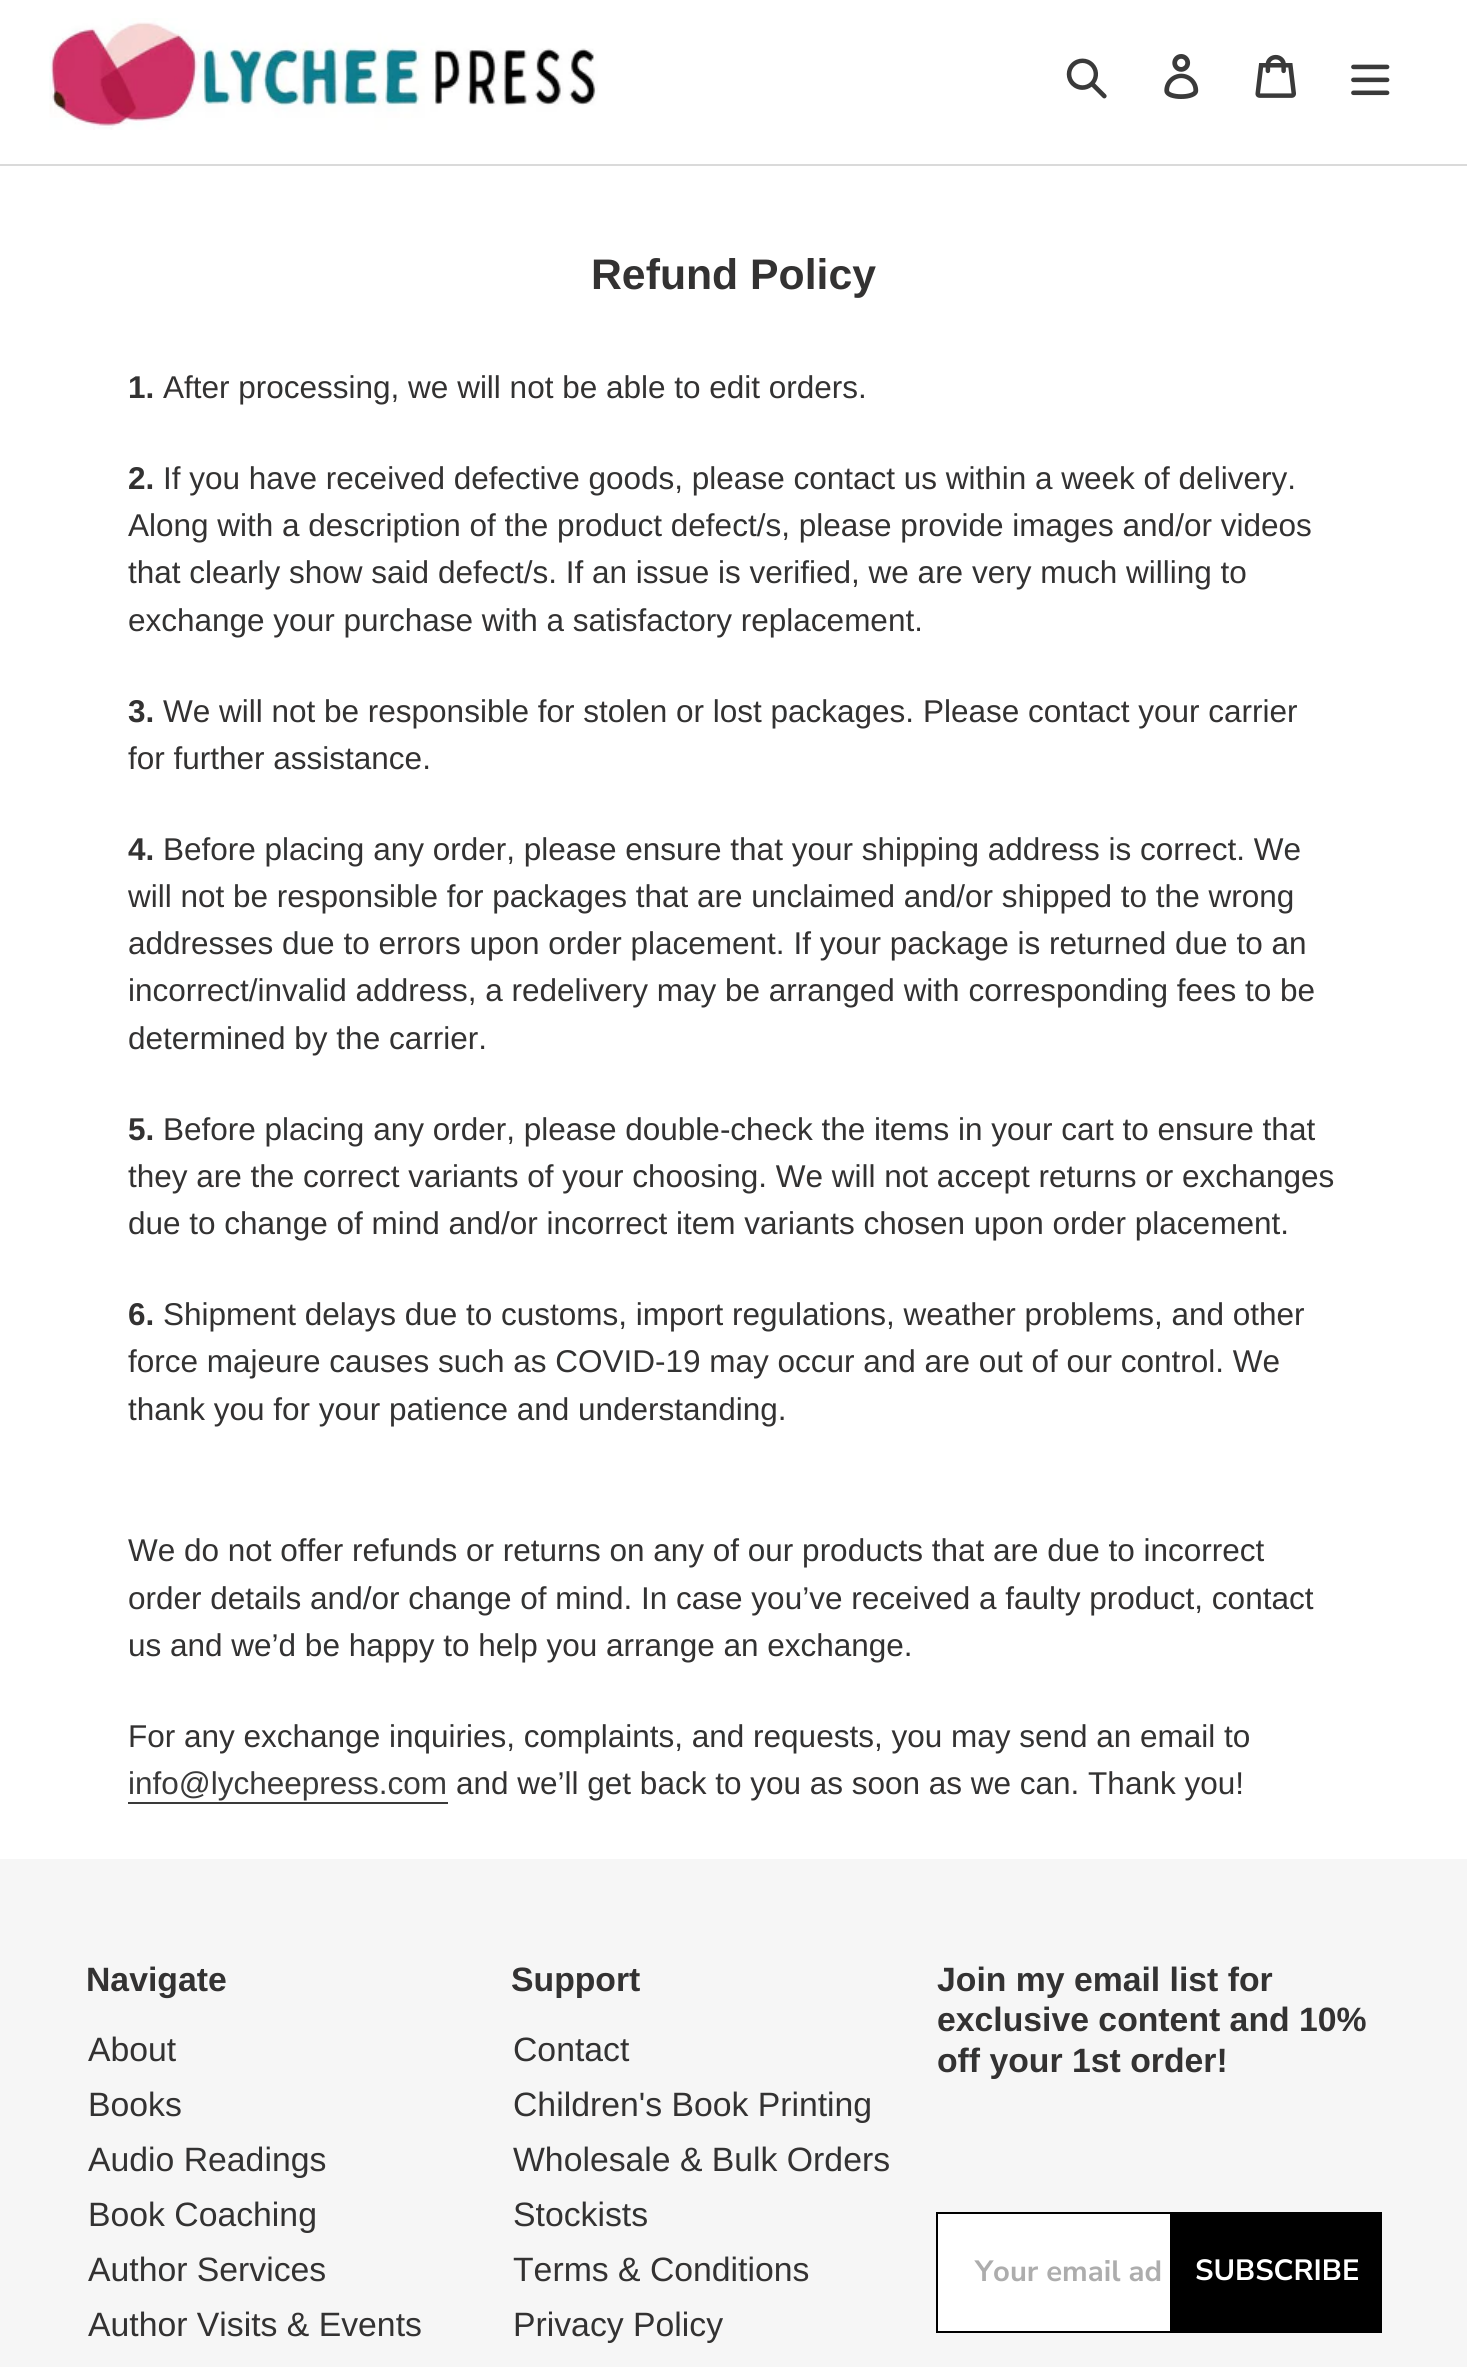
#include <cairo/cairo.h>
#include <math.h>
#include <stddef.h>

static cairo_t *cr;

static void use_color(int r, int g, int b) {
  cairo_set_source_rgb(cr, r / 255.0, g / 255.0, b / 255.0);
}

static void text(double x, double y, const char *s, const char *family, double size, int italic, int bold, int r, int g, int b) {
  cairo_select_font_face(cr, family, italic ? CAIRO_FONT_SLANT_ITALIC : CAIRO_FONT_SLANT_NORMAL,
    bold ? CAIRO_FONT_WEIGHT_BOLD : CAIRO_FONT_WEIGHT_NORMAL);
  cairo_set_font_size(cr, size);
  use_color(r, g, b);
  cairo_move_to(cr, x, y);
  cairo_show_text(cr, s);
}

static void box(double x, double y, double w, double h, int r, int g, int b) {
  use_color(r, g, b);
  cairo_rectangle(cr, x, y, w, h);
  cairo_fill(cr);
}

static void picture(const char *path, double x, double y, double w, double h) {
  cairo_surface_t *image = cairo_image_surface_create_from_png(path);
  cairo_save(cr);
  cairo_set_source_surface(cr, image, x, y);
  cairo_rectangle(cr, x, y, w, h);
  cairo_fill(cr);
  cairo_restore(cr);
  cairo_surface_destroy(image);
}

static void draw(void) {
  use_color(255, 255, 255);
  cairo_paint(cr);
  box(0, 164, 1467, 2, 218, 218, 218);
  picture("img_01.png", 49, 18, 549, 112);
  picture("img_02.png", 1066, 58, 41, 41);
  picture("img_03.png", 1164, 54, 35, 45);
  picture("img_04.png", 1255, 54, 41, 44);
  picture("img_05.png", 1351, 64, 39, 32);
  box(128, 1802, 320, 2, 58, 58, 58);
  box(0, 1859, 1467, 508, 246, 246, 246);
  use_color(255, 255, 255);
  cairo_rectangle(cr, 937, 2213, 234, 119);
  cairo_fill_preserve(cr);
  use_color(0, 0, 0);
  cairo_stroke(cr);
  box(1172, 2212, 210, 121, 0, 0, 0);
  text(591, 289, "Refund Policy", "Liberation Sans", 42.75, 0, 1, 51, 50, 50);
  text(128, 398, "1.", "Liberation Sans", 31.5, 0, 1, 51, 50, 50);
  text(163, 398, "After processing, we will not be able to edit orders.", "Liberation Sans", 31.5, 0, 0, 51, 50, 50);
  text(128, 489, "2.", "Liberation Sans", 31.5, 0, 1, 51, 50, 50);
  text(163, 489, "If you have received defective goods, please contact us within a week of delivery.", "Liberation Sans", 31.5, 0, 0, 51, 50, 50);
  text(128, 536, "Along with a description of the product defect/s, please provide images and/or videos", "Liberation Sans", 31.5, 0, 0, 51, 50, 50);
  text(128, 583, "that clearly show said defect/s. If an issue is verified, we are very much willing to", "Liberation Sans", 31.5, 0, 0, 51, 50, 50);
  text(128, 631, "exchange your purchase with a satisfactory replacement.", "Liberation Sans", 31.5, 0, 0, 51, 50, 50);
  text(128, 722, "3.", "Liberation Sans", 31.5, 0, 1, 51, 50, 50);
  text(163, 722, "We will not be responsible for stolen or lost packages. Please contact your carrier", "Liberation Sans", 31.5, 0, 0, 51, 50, 50);
  text(128, 769, "for further assistance.", "Liberation Sans", 31.5, 0, 0, 51, 50, 50);
  text(128, 860, "4.", "Liberation Sans", 31.5, 0, 1, 51, 50, 50);
  text(163, 860, "Before placing any order, please ensure that your shipping address is correct. We", "Liberation Sans", 31.5, 0, 0, 51, 50, 50);
  text(128, 907, "will not be responsible for packages that are unclaimed and/or shipped to the wrong", "Liberation Sans", 31.5, 0, 0, 51, 50, 50);
  text(128, 954, "addresses due to errors upon order placement. If your package is returned due to an", "Liberation Sans", 31.5, 0, 0, 51, 50, 50);
  text(128, 1001, "incorrect/invalid address, a redelivery may be arranged with corresponding fees to be", "Liberation Sans", 31.5, 0, 0, 51, 50, 50);
  text(128, 1049, "determined by the carrier.", "Liberation Sans", 31.5, 0, 0, 51, 50, 50);
  text(128, 1140, "5.", "Liberation Sans", 31.5, 0, 1, 51, 50, 50);
  text(163, 1140, "Before placing any order, please double-check the items in your cart to ensure that", "Liberation Sans", 31.5, 0, 0, 51, 50, 50);
  text(128, 1187, "they are the correct variants of your choosing. We will not accept returns or exchanges", "Liberation Sans", 31.5, 0, 0, 51, 50, 50);
  text(128, 1234, "due to change of mind and/or incorrect item variants chosen upon order placement.", "Liberation Sans", 31.5, 0, 0, 51, 50, 50);
  text(128, 1325, "6.", "Liberation Sans", 31.5, 0, 1, 51, 50, 50);
  text(163, 1325, "Shipment delays due to customs, import regulations, weather problems, and other", "Liberation Sans", 31.5, 0, 0, 51, 50, 50);
  text(128, 1372, "force majeure causes such as COVID-19 may occur and are out of our control. We", "Liberation Sans", 31.5, 0, 0, 51, 50, 50);
  text(128, 1420, "thank you for your patience and understanding.", "Liberation Sans", 31.5, 0, 0, 51, 50, 50);
  text(128, 1561, "We do not offer refunds or returns on any of our products that are due to incorrect", "Liberation Sans", 31.5, 0, 0, 51, 50, 50);
  text(128, 1609, "order details and/or change of mind. In case you’ve received a faulty product, contact", "Liberation Sans", 31.5, 0, 0, 51, 50, 50);
  text(128, 1656, "us and we’d be happy to help you arrange an exchange.", "Liberation Sans", 31.5, 0, 0, 51, 50, 50);
  text(128, 1747, "For any exchange inquiries, complaints, and requests, you may send an email to", "Liberation Sans", 31.5, 0, 0, 51, 50, 50);
  text(128, 1794, "info@lycheepress.com", "Liberation Sans", 31.5, 0, 0, 58, 58, 58);
  text(456, 1794, "and we’ll get back to you as soon as we can. Thank you!", "Liberation Sans", 31.5, 0, 0, 51, 50, 50);
  text(86, 1991, "Navigate", "Liberation Sans", 33.75, 0, 1, 51, 50, 50);
  text(88, 2061, "About", "Liberation Sans", 33.75, 0, 0, 51, 50, 50);
  text(88, 2116, "Books", "Liberation Sans", 33.75, 0, 0, 51, 50, 50);
  text(88, 2171, "Audio Readings", "Liberation Sans", 33.75, 0, 0, 51, 50, 50);
  text(88, 2226, "Book Coaching", "Liberation Sans", 33.75, 0, 0, 51, 50, 50);
  text(88, 2281, "Author Services", "Liberation Sans", 33.75, 0, 0, 51, 50, 50);
  text(88, 2336, "Author Visits & Events", "Liberation Sans", 33.75, 0, 0, 51, 50, 50);
  text(511, 1991, "Support", "Liberation Sans", 33.75, 0, 1, 51, 50, 50);
  text(513, 2061, "Contact", "Liberation Sans", 33.75, 0, 0, 51, 50, 50);
  text(513, 2116, "Children's Book Printing", "Liberation Sans", 33.75, 0, 0, 51, 50, 50);
  text(513, 2171, "Wholesale & Bulk Orders", "Liberation Sans", 33.75, 0, 0, 51, 50, 50);
  text(513, 2226, "Stockists", "Liberation Sans", 33.75, 0, 0, 51, 50, 50);
  text(513, 2281, "Terms & Conditions", "Liberation Sans", 33.75, 0, 0, 51, 50, 50);
  text(513, 2336, "Privacy Policy", "Liberation Sans", 33.75, 0, 0, 51, 50, 50);
  text(937, 1991, "Join my email list for", "Liberation Sans", 33.75, 0, 1, 51, 50, 50);
  text(937, 2031, "exclusive content and 10%", "Liberation Sans", 33.75, 0, 1, 51, 50, 50);
  text(937, 2072, "off your 1st order!", "Liberation Sans", 33.75, 0, 1, 51, 50, 50);
  text(975, 2281, "Your email ad", "Nunito Sans", 29.25, 0, 1, 173, 173, 173);
  text(1195, 2280, "SUBSCRIBE", "Nunito Sans", 29.25, 0, 1, 255, 255, 255);
}

int main(void) {
  cairo_surface_t *surface = cairo_image_surface_create(CAIRO_FORMAT_RGB24, 1467, 2367);
  cr = cairo_create(surface);
  cairo_font_options_t *options = cairo_font_options_create();
  cairo_font_options_set_hint_metrics(options, CAIRO_HINT_METRICS_OFF);
  cairo_font_options_set_hint_style(options, CAIRO_HINT_STYLE_NONE);
  cairo_set_font_options(cr, options);
  cairo_set_miter_limit(cr, 4);
  draw();
  cairo_surface_write_to_png(surface, "out.png");
  cairo_font_options_destroy(options);
  cairo_destroy(cr);
  cairo_surface_destroy(surface);
  return 0;
}
